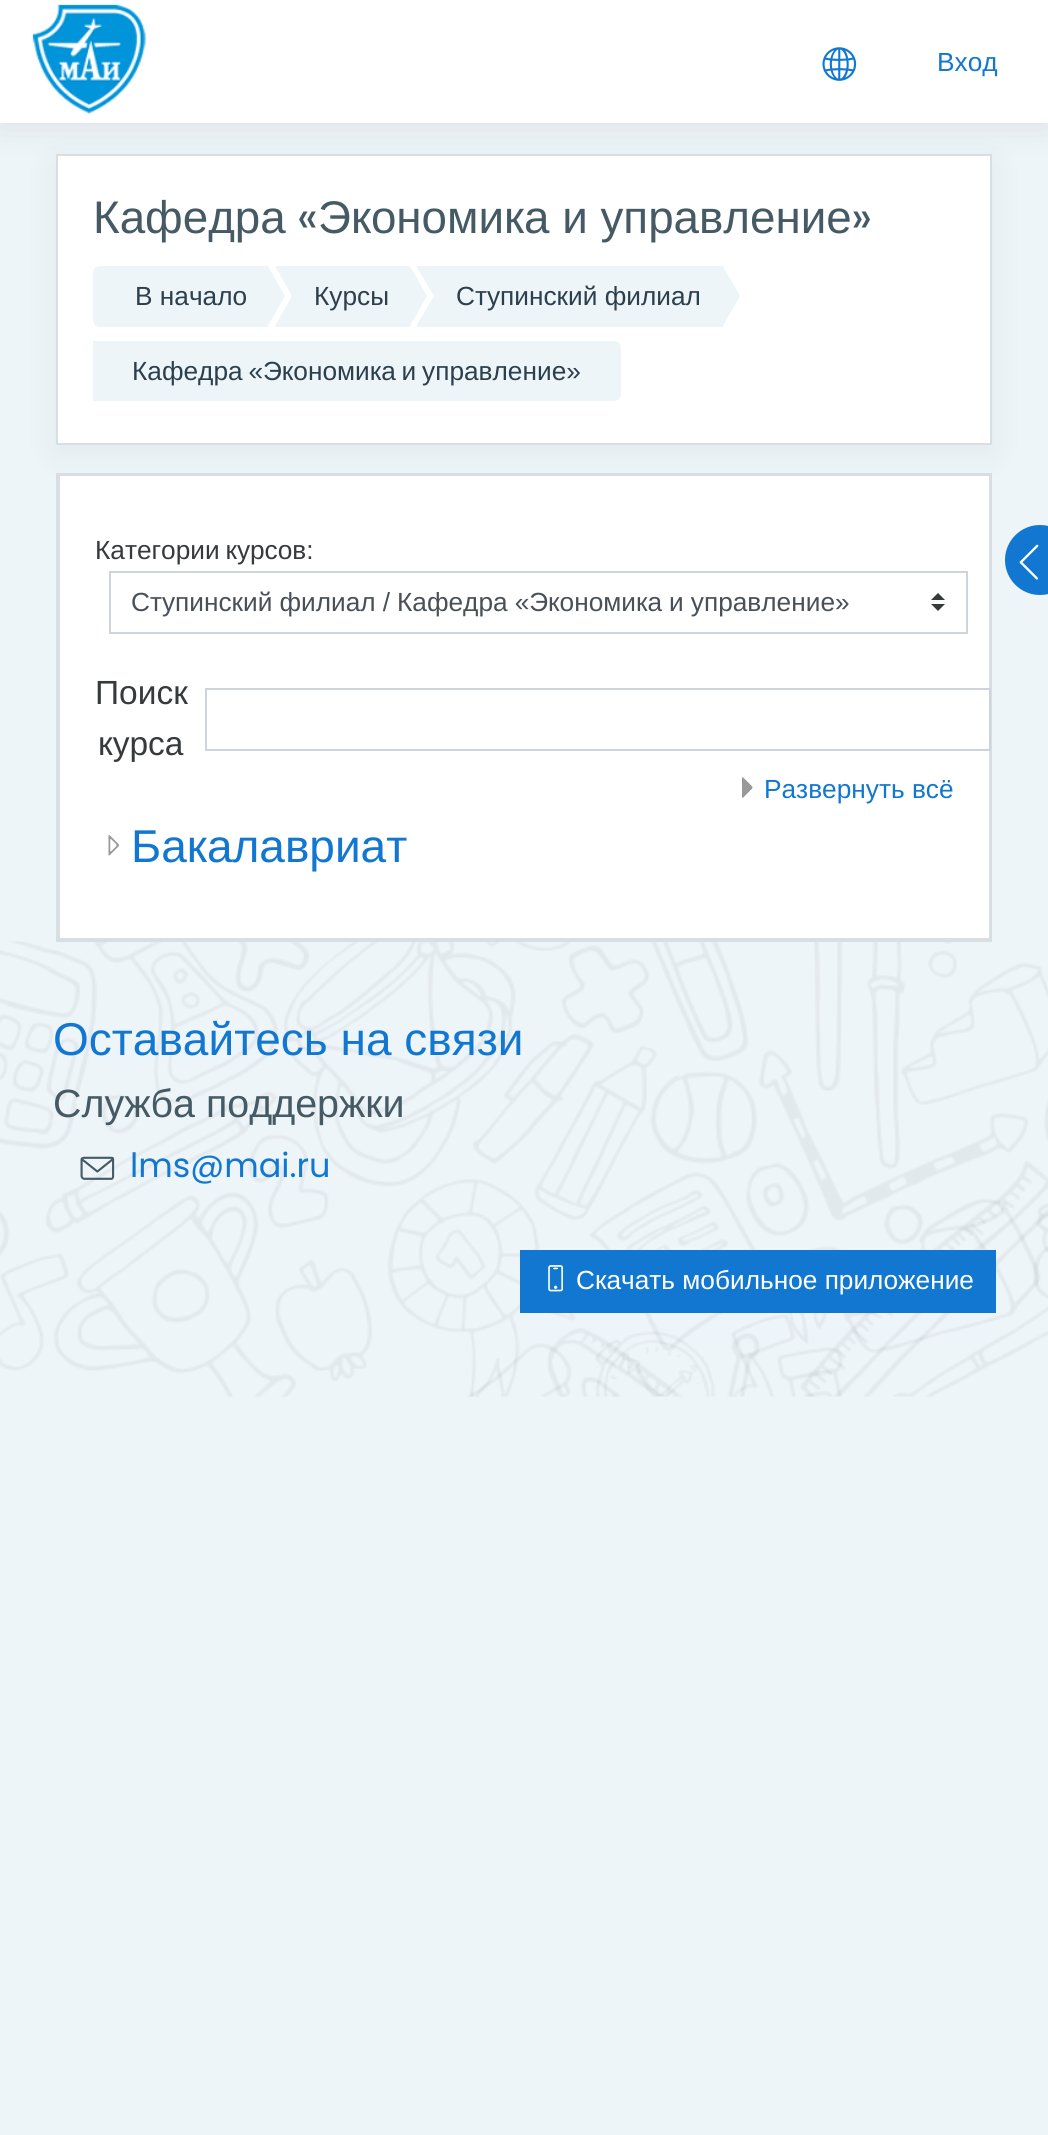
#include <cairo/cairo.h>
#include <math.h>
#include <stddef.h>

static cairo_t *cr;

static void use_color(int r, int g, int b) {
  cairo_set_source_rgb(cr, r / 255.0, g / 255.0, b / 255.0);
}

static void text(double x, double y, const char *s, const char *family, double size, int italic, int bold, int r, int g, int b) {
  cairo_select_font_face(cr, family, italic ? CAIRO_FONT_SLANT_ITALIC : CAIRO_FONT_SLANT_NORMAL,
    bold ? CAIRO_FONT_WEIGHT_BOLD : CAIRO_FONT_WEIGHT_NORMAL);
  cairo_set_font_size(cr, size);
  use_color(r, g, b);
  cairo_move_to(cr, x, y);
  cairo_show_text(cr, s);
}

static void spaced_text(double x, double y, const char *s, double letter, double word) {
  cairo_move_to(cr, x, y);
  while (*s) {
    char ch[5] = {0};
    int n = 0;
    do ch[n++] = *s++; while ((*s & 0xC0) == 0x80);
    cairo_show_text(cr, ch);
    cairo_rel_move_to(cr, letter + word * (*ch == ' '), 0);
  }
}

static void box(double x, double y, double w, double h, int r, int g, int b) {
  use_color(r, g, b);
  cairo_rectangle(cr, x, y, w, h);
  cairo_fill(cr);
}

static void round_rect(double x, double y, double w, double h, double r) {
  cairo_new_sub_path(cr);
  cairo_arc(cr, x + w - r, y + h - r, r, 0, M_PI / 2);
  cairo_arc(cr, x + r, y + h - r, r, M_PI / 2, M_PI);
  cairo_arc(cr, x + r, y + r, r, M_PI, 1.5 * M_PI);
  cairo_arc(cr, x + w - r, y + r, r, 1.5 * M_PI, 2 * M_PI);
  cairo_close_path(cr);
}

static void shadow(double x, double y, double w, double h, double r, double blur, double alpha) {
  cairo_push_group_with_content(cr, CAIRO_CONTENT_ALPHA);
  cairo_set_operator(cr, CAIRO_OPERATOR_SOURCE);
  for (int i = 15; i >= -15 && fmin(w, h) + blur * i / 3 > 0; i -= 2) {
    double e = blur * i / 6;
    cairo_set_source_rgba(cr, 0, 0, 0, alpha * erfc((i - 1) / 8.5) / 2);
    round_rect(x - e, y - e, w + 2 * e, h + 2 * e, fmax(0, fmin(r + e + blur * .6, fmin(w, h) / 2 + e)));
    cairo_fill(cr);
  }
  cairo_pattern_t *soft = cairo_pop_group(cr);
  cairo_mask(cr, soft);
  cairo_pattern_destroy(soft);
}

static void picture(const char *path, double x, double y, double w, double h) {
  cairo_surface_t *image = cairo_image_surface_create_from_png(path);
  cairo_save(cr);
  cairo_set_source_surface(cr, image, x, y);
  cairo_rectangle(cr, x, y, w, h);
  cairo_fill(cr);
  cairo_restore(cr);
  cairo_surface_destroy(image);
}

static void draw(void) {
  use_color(238, 245, 249);
  cairo_paint(cr);
  use_color(0, 0, 0);
  shadow(56, 163, 936, 290, 0, 17.5, 0.05);
  use_color(255, 255, 255);
  cairo_rectangle(cr, 57, 155, 934, 289);
  cairo_fill_preserve(cr);
  use_color(215, 223, 227);
  cairo_stroke(cr);
  use_color(0, 0, 0);
  shadow(0, 0, 1048, 123, 0, 17.5, 0.1);
  box(0, 0, 1048, 123, 255, 255, 255);
  picture("img_01.png", 32, 4, 114, 111);
  picture("img_02.png", 822, 47, 35, 34);
  use_color(238, 245, 249);
  cairo_new_path(cr);
  cairo_move_to(cr, 100, 266);
  cairo_line_to(cr, 268, 266);
  cairo_line_to(cr, 268, 327);
  cairo_line_to(cr, 100, 327);
  cairo_curve_to(cr, 96, 327, 93, 324, 93, 320);
  cairo_line_to(cr, 93, 273);
  cairo_curve_to(cr, 93, 269, 96, 266, 100, 266);
  cairo_close_path(cr);
  cairo_fill(cr);
  box(275, 266, 135, 61, 238, 245, 249);
  use_color(255, 255, 255);
  cairo_new_path(cr);
  cairo_move_to(cr, 275, 326);
  cairo_line_to(cr, 275, 266);
  cairo_line_to(cr, 292, 296);
  cairo_close_path(cr);
  cairo_fill(cr);
  use_color(238, 245, 249);
  cairo_new_path(cr);
  cairo_move_to(cr, 268, 326);
  cairo_line_to(cr, 268, 266);
  cairo_line_to(cr, 285, 296);
  cairo_close_path(cr);
  cairo_fill(cr);
  box(417, 266, 306, 61, 238, 245, 249);
  use_color(255, 255, 255);
  cairo_new_path(cr);
  cairo_move_to(cr, 416, 326);
  cairo_line_to(cr, 416, 266);
  cairo_line_to(cr, 434, 296);
  cairo_close_path(cr);
  cairo_fill(cr);
  use_color(238, 245, 249);
  cairo_new_path(cr);
  cairo_move_to(cr, 410, 326);
  cairo_line_to(cr, 410, 266);
  cairo_line_to(cr, 427, 296);
  cairo_close_path(cr);
  cairo_fill(cr);
  cairo_new_path(cr);
  cairo_move_to(cr, 723, 326);
  cairo_line_to(cr, 723, 266);
  cairo_line_to(cr, 740, 296);
  cairo_close_path(cr);
  cairo_fill(cr);
  cairo_new_path(cr);
  cairo_move_to(cr, 93, 341);
  cairo_line_to(cr, 614, 341);
  cairo_curve_to(cr, 618, 341, 621, 344, 621, 348);
  cairo_line_to(cr, 621, 394);
  cairo_curve_to(cr, 621, 398, 618, 401, 614, 401);
  cairo_line_to(cr, 93, 401);
  cairo_close_path(cr);
  cairo_fill(cr);
  picture("img_06.png", 0, 941, 1048, 456);
  cairo_rectangle(cr, 57, 474, 934, 467);
  use_color(215, 223, 227);
  cairo_stroke(cr);
  use_color(255, 255, 255);
  cairo_rectangle(cr, 59, 475, 931, 464);
  cairo_fill_preserve(cr);
  use_color(215, 223, 227);
  cairo_stroke(cr);
  use_color(55, 58, 60);
  cairo_new_path(cr);
  cairo_move_to(cr, 938, 593);
  cairo_line_to(cr, 931, 600);
  cairo_line_to(cr, 945, 600);
  cairo_close_path(cr);
  cairo_move_to(cr, 938, 611);
  cairo_line_to(cr, 931, 604);
  cairo_line_to(cr, 945, 604);
  cairo_close_path(cr);
  cairo_fill(cr);
  cairo_rectangle(cr, 110, 572, 857, 61);
  use_color(206, 212, 218);
  cairo_stroke(cr);
  cairo_rectangle(cr, 206, 689, 784, 61);
  cairo_stroke(cr);
  picture("img_03.png", 742, 777, 11, 21);
  picture("img_04.png", 108, 835, 11, 21);
  use_color(17, 119, 209);
  cairo_arc(cr, 1040, 560, 35, 0, 2 * M_PI);
  cairo_fill(cr);
  picture("img_05.png", 1019, 544, 20, 36);
  picture("img_07.png", 80, 1156, 35, 24);
  box(520, 1250, 476, 63, 17, 119, 209);
  picture("img_08.png", 548, 1265, 15, 27);
  text(937, 71, "Вход", "Liberation Sans", 26.25, 0, 0, 17, 119, 209);
  text(93, 233, "Кафедра", "Liberation Sans", 45.75, 0, 0, 69, 90, 100);
  text(297, 233, "«", "Poppins", 45.75, 0, 0, 69, 90, 100);
  text(318, 233, "Экономика и управление", "Liberation Sans", 45.75, 0, 0, 69, 90, 100);
  text(851, 233, "»", "Poppins", 45.75, 0, 0, 69, 90, 100);
  text(135, 305, "В начало", "Liberation Sans", 26.25, 0, 0, 44, 63, 76);
  text(314, 305, "Курсы", "Liberation Sans", 26.25, 0, 0, 44, 63, 76);
  text(456, 305, "Ступинский филиал", "Liberation Sans", 26.25, 0, 0, 44, 63, 76);
  spaced_text(132, 380, "Кафедра «Экономика и управление»", 0, -1.5);
  use_color(55, 58, 60);
  spaced_text(95, 559, "Категории курсов:", 0, -1.5);
  use_color(73, 80, 87);
  spaced_text(131, 611, "Ступинский филиал / Кафедра «Экономика и управление»", 0, -0.25);
  text(95, 704, "Поиск", "Liberation Sans", 33.5, 0, 0, 55, 58, 60);
  text(98, 755, "курса", "Liberation Sans", 33.5, 0, 0, 55, 58, 60);
  text(764, 798, "Развернуть всё", "Liberation Sans", 26.25, 0, 0, 17, 119, 209);
  text(131, 862, "Бакалавриат", "Liberation Sans", 46, 0, 0, 17, 119, 209);
  text(53, 1055, "Оставайтесь на связи", "Liberation Sans", 46, 0, 0, 17, 119, 209);
  text(53, 1117, "Служба поддержки", "Liberation Sans", 39.4, 0, 0, 69, 90, 100);
  text(130, 1177, "lms@mai.ru", "Poppins", 33.5, 0, 0, 17, 119, 209);
  text(576, 1289, "Скачать мобильное приложение", "Liberation Sans", 26.25, 0, 0, 255, 255, 255);
}

int main(void) {
  cairo_surface_t *surface = cairo_image_surface_create(CAIRO_FORMAT_RGB24, 1048, 2135);
  cr = cairo_create(surface);
  cairo_font_options_t *options = cairo_font_options_create();
  cairo_font_options_set_hint_metrics(options, CAIRO_HINT_METRICS_OFF);
  cairo_font_options_set_hint_style(options, CAIRO_HINT_STYLE_NONE);
  cairo_set_font_options(cr, options);
  cairo_set_miter_limit(cr, 4);
  draw();
  cairo_surface_write_to_png(surface, "out.png");
  cairo_font_options_destroy(options);
  cairo_destroy(cr);
  cairo_surface_destroy(surface);
  return 0;
}
